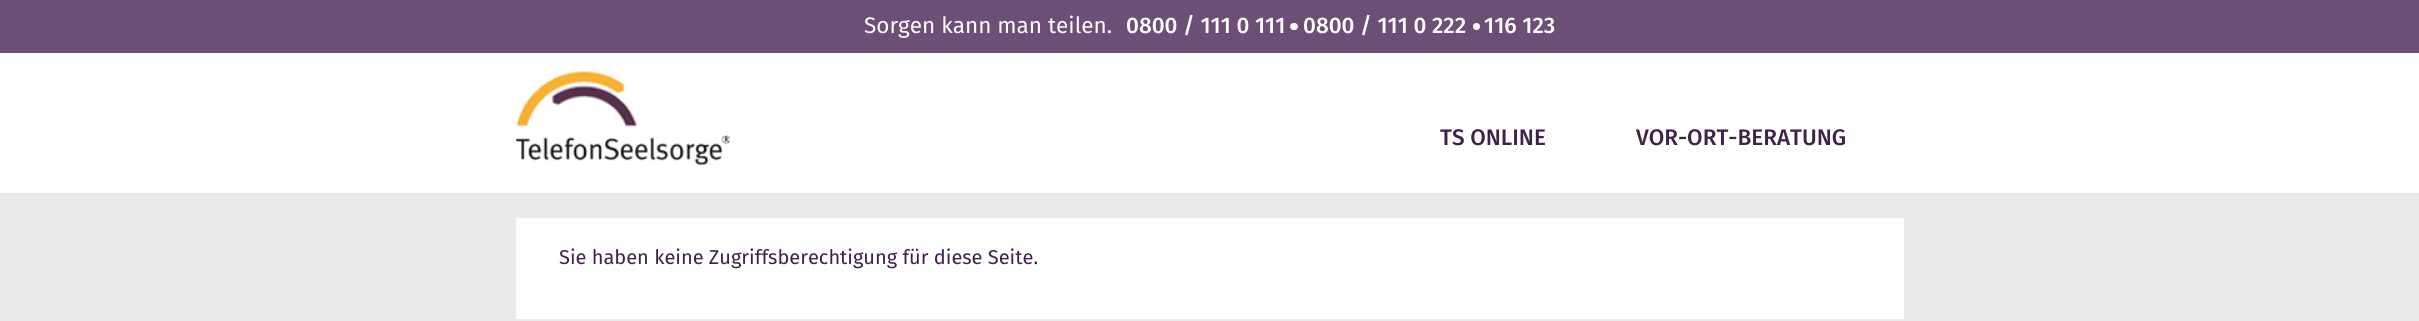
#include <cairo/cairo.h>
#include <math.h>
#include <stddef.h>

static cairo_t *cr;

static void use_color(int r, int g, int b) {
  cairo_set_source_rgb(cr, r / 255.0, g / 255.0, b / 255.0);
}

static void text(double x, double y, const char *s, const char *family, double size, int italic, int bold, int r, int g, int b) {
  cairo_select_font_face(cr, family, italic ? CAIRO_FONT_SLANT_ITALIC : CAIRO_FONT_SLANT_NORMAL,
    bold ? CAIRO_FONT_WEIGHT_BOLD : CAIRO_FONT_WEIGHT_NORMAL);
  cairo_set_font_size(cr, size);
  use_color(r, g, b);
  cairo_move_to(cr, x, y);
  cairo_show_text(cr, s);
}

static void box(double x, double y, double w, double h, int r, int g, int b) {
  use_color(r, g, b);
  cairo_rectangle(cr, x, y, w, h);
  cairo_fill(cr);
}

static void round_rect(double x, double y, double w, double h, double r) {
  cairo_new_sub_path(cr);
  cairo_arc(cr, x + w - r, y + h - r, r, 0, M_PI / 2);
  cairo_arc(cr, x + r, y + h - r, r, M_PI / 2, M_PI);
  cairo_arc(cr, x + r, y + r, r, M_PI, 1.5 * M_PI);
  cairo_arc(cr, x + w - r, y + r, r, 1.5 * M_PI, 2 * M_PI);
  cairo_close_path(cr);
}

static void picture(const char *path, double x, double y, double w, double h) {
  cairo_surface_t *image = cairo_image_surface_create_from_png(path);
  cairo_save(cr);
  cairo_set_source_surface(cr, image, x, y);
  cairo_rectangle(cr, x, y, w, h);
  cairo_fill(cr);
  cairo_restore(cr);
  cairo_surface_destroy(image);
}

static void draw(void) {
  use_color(255, 255, 255);
  cairo_paint(cr);
  box(0, 0, 2419, 53, 108, 78, 118);
  use_color(255, 255, 255);
  round_rect(1290, 23, 8, 7, 3.5);
  cairo_fill(cr);
  cairo_arc(cr, 1476.5, 26.5, 3.5, 0, 2 * M_PI);
  cairo_fill(cr);
  picture("img_01.png", 516, 71, 214, 94);
  box(0, 193, 2419, 128, 234, 234, 235);
  box(516, 218, 1388, 101, 255, 255, 255);
  text(864, 33, "Sorgen kann man teilen.", "Fira Sans", 22.5, 0, 0, 255, 255, 255);
  text(1126, 33, "0800 / 111 0 111", "Fira Sans Medium", 22.5, 0, 0, 255, 255, 255);
  text(1303, 33, "0800 / 111 0 222", "Fira Sans Medium", 22.5, 0, 0, 255, 255, 255);
  text(1484, 33, "116 123", "Fira Sans Medium", 22.5, 0, 0, 255, 255, 255);
  text(1440, 145, "TS ONLINE", "Fira Sans Medium", 22.5, 0, 0, 63, 33, 73);
  text(1636, 145, "VOR-ORT-BERATUNG", "Fira Sans Medium", 22.5, 0, 0, 63, 33, 73);
  text(559, 264, "Sie haben keine Zugriffsberechtigung für diese Seite.", "Fira Sans", 20, 0, 0, 63, 33, 73);
}

int main(void) {
  cairo_surface_t *surface = cairo_image_surface_create(CAIRO_FORMAT_RGB24, 2419, 321);
  cr = cairo_create(surface);
  cairo_font_options_t *options = cairo_font_options_create();
  cairo_font_options_set_hint_metrics(options, CAIRO_HINT_METRICS_OFF);
  cairo_font_options_set_hint_style(options, CAIRO_HINT_STYLE_NONE);
  cairo_set_font_options(cr, options);
  cairo_set_miter_limit(cr, 4);
  draw();
  cairo_surface_write_to_png(surface, "out.png");
  cairo_font_options_destroy(options);
  cairo_destroy(cr);
  cairo_surface_destroy(surface);
  return 0;
}
